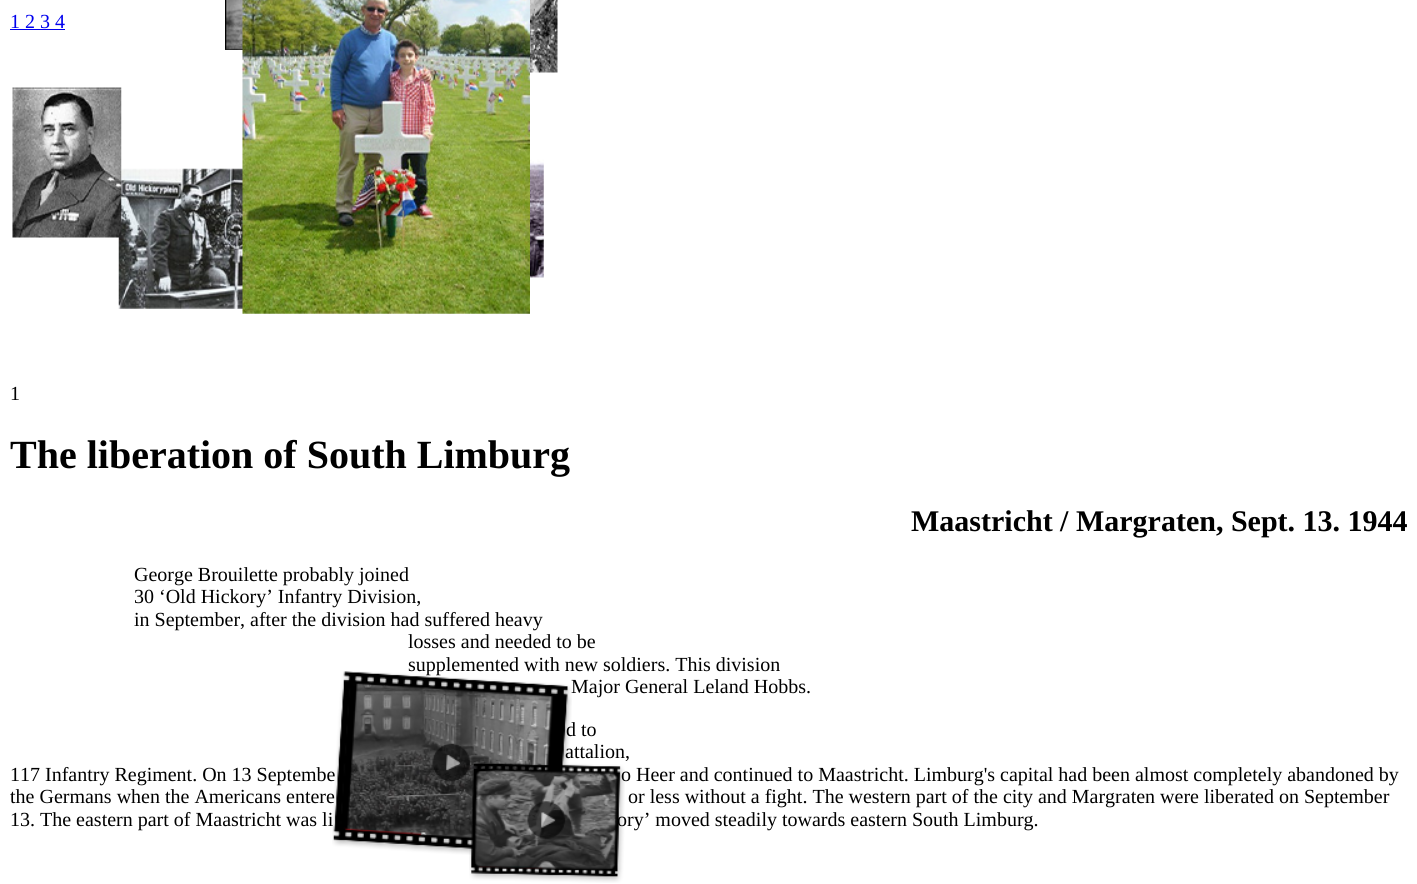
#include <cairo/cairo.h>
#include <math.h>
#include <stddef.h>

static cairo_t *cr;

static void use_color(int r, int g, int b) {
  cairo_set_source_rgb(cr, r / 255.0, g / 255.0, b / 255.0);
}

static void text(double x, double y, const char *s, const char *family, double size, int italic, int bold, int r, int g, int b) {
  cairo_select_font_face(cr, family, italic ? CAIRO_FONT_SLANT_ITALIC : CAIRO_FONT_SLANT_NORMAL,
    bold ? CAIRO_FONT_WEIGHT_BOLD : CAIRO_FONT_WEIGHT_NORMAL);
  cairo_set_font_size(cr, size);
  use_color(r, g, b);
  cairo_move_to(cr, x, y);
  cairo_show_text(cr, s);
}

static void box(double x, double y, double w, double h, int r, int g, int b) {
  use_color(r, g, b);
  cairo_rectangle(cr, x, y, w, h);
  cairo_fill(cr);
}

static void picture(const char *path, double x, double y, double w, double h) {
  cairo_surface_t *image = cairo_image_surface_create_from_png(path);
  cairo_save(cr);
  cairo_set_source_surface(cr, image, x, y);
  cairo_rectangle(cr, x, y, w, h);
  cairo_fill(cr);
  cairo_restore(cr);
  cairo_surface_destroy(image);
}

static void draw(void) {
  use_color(255, 255, 255);
  cairo_paint(cr);
  box(10, 29, 55, 1, 0, 0, 238);
  picture("img_06.png", 118, 168, 125, 141);
  picture("img_07.png", 225, 0, 18, 50);
  picture("img_01.png", 242, 0, 288, 314);
  picture("img_02.png", 530, 0, 28, 73);
  picture("img_04.png", 530, 150, 14, 128);
  picture("img_05.png", 12, 87, 110, 151);
  text(10, 28, "1 2 3 4", "Liberation Serif", 20, 0, 0, 0, 0, 238);
  text(10, 400, "1", "Liberation Serif", 20, 0, 0, 0, 0, 0);
  text(10, 468, "The liberation of South Limburg", "Liberation Serif", 40, 0, 1, 0, 0, 0);
  text(911, 531, "Maastricht / Margraten, Sept. 13. 1944", "Liberation Serif", 30, 0, 1, 0, 0, 0);
  text(134, 581, "George Brouilette probably joined", "Liberation Serif", 20, 0, 0, 0, 0, 0);
  text(134, 603, "30 ‘Old Hickory’ Infantry Division,", "Liberation Serif", 20, 0, 0, 0, 0, 0);
  text(134, 626, "in September, after the division had suffered heavy", "Liberation Serif", 20, 0, 0, 0, 0, 0);
  text(408, 648, "losses and needed to be", "Liberation Serif", 20, 0, 0, 0, 0, 0);
  text(408, 671, "supplemented with new soldiers. This division", "Liberation Serif", 20, 0, 0, 0, 0, 0);
  text(571, 693, "Major General Leland Hobbs.", "Liberation Serif", 20, 0, 0, 0, 0, 0);
  text(566, 736, "d to", "Liberation Serif", 20, 0, 0, 0, 0, 0);
  text(565, 758, "attalion,", "Liberation Serif", 20, 0, 0, 0, 0, 0);
  text(10, 781, "117 Infantry Regiment. On 13 Septembe", "Liberation Serif", 20, 0, 0, 0, 0, 0);
  text(621, 781, "o Heer and continued to Maastricht. Limburg's capital had been almost completely abandoned by", "Liberation Serif", 20, 0, 0, 0, 0, 0);
  text(10, 803, "the Germans when the Americans entere", "Liberation Serif", 20, 0, 0, 0, 0, 0);
  text(628, 803, "or less without a fight. The western part of the city and Margraten were liberated on September", "Liberation Serif", 20, 0, 0, 0, 0, 0);
  text(10, 826, "13. The eastern part of Maastricht was li", "Liberation Serif", 20, 0, 0, 0, 0, 0);
  text(617, 826, "ory’ moved steadily towards eastern South Limburg.", "Liberation Serif", 20, 0, 0, 0, 0, 0);
  picture("img_08.png", 332, 671, 240, 184);
  picture("img_03.png", 469, 762, 156, 121);
}

int main(void) {
  cairo_surface_t *surface = cairo_image_surface_create(CAIRO_FORMAT_RGB24, 1417, 884);
  cr = cairo_create(surface);
  cairo_font_options_t *options = cairo_font_options_create();
  cairo_font_options_set_hint_metrics(options, CAIRO_HINT_METRICS_OFF);
  cairo_font_options_set_hint_style(options, CAIRO_HINT_STYLE_NONE);
  cairo_set_font_options(cr, options);
  cairo_set_miter_limit(cr, 4);
  draw();
  cairo_surface_write_to_png(surface, "out.png");
  cairo_font_options_destroy(options);
  cairo_destroy(cr);
  cairo_surface_destroy(surface);
  return 0;
}
